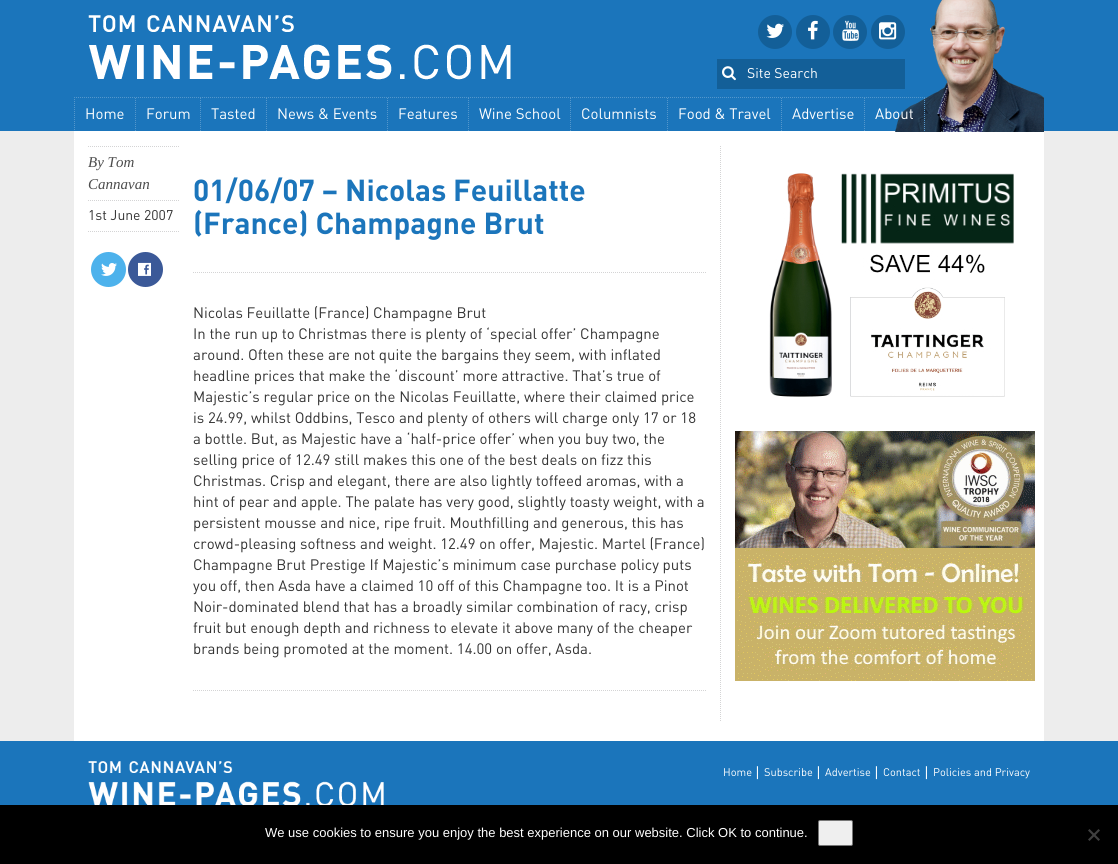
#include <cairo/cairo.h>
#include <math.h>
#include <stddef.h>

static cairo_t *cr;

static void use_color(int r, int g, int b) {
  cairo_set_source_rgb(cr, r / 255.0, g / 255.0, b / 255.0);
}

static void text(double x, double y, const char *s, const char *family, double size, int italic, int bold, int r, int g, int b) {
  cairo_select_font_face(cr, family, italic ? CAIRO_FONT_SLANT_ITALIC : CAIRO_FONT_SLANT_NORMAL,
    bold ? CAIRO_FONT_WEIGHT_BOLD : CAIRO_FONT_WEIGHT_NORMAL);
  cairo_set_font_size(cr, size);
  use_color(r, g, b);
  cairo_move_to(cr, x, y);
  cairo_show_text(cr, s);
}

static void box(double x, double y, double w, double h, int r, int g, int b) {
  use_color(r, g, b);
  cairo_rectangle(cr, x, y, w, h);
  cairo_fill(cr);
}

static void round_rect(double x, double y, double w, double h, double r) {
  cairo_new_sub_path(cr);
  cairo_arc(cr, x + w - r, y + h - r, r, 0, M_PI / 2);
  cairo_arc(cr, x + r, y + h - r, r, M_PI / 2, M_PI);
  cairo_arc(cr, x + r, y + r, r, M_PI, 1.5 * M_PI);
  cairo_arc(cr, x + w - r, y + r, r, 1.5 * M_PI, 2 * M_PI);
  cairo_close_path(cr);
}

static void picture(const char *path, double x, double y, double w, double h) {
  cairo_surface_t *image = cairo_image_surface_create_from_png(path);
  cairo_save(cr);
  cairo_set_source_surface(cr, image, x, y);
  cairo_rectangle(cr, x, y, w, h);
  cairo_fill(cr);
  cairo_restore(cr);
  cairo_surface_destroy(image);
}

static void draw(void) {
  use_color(27, 117, 187);
  cairo_paint(cr);
  picture("img_01.png", 88, 15, 423, 65);
  use_color(19, 95, 152);
  cairo_arc(cr, 775, 32, 17, 0, 2 * M_PI);
  cairo_fill(cr);
  picture("img_02.png", 766, 23, 18, 15);
  cairo_arc(cr, 813, 32, 17, 0, 2 * M_PI);
  cairo_fill(cr);
  picture("img_03.png", 808, 20, 10, 20);
  cairo_arc(cr, 850, 32, 17, 0, 2 * M_PI);
  cairo_fill(cr);
  picture("img_04.png", 842, 20, 17, 21);
  cairo_arc(cr, 888, 32, 17, 0, 2 * M_PI);
  cairo_fill(cr);
  picture("img_05.png", 879, 22, 18, 18);
  box(717, 59, 188, 30, 19, 95, 152);
  cairo_new_path(cr);
  cairo_move_to(cr, 74, 97.5);
  cairo_line_to(cr, 1044, 97.5);
  use_color(84, 151, 204);
  cairo_set_line_width(cr, 1);
  cairo_set_dash(cr, (double[]){1, 1}, 2, 0);
  cairo_stroke(cr);
  box(0, 131, 1118, 610, 237, 237, 237);
  box(74, 131, 970, 610, 255, 255, 255);
  picture("img_06.png", 895, 0, 149, 132);
  picture("img_07.png", 722, 66, 14, 15);
  cairo_new_path(cr);
  cairo_move_to(cr, 74.5, 97);
  cairo_line_to(cr, 74.5, 131);
  use_color(84, 151, 204);
  cairo_stroke(cr);
  cairo_new_path(cr);
  cairo_move_to(cr, 135.5, 98);
  cairo_line_to(cr, 135.5, 131);
  cairo_stroke(cr);
  cairo_new_path(cr);
  cairo_move_to(cr, 200.5, 98);
  cairo_line_to(cr, 200.5, 131);
  cairo_stroke(cr);
  cairo_new_path(cr);
  cairo_move_to(cr, 266.5, 98);
  cairo_line_to(cr, 266.5, 131);
  cairo_stroke(cr);
  cairo_new_path(cr);
  cairo_move_to(cr, 387.5, 98);
  cairo_line_to(cr, 387.5, 131);
  cairo_stroke(cr);
  cairo_new_path(cr);
  cairo_move_to(cr, 468.5, 98);
  cairo_line_to(cr, 468.5, 131);
  cairo_stroke(cr);
  cairo_new_path(cr);
  cairo_move_to(cr, 570.5, 98);
  cairo_line_to(cr, 570.5, 131);
  cairo_stroke(cr);
  cairo_new_path(cr);
  cairo_move_to(cr, 667.5, 98);
  cairo_line_to(cr, 667.5, 131);
  cairo_stroke(cr);
  cairo_new_path(cr);
  cairo_move_to(cr, 781.5, 98);
  cairo_line_to(cr, 781.5, 131);
  cairo_stroke(cr);
  cairo_new_path(cr);
  cairo_move_to(cr, 864.5, 98);
  cairo_line_to(cr, 864.5, 131);
  cairo_stroke(cr);
  cairo_new_path(cr);
  cairo_move_to(cr, 924.5, 98);
  cairo_line_to(cr, 924.5, 131);
  cairo_stroke(cr);
  cairo_new_path(cr);
  cairo_move_to(cr, 720.5, 146);
  cairo_line_to(cr, 720.5, 721);
  use_color(212, 212, 213);
  cairo_stroke(cr);
  cairo_new_path(cr);
  cairo_move_to(cr, 88, 146.5);
  cairo_line_to(cr, 179, 146.5);
  cairo_stroke(cr);
  cairo_new_path(cr);
  cairo_move_to(cr, 88, 200.5);
  cairo_line_to(cr, 179, 200.5);
  cairo_stroke(cr);
  cairo_new_path(cr);
  cairo_move_to(cr, 88, 231.5);
  cairo_line_to(cr, 179, 231.5);
  cairo_stroke(cr);
  use_color(77, 178, 236);
  cairo_arc(cr, 108.5, 269.5, 17.5, 0, 2 * M_PI);
  cairo_fill(cr);
  picture("img_08.png", 101, 263, 16, 13);
  use_color(59, 89, 152);
  cairo_arc(cr, 145.5, 269.5, 17.5, 0, 2 * M_PI);
  cairo_fill(cr);
  picture("img_09.png", 138, 262, 13, 14);
  cairo_new_path(cr);
  cairo_move_to(cr, 193, 272.5);
  cairo_line_to(cr, 706, 272.5);
  use_color(212, 212, 213);
  cairo_stroke(cr);
  cairo_new_path(cr);
  cairo_move_to(cr, 193, 690.5);
  cairo_line_to(cr, 706, 690.5);
  cairo_stroke(cr);
  picture("img_10.png", 769, 173, 245, 224);
  picture("img_11.png", 735, 431, 300, 250);
  picture("img_12.png", 88, 761, 296, 44);
  box(0, 805, 1118, 59, 0, 0, 0);
  use_color(239, 239, 239);
  round_rect(818.5, 820.5, 34, 25, 1.5);
  cairo_fill_preserve(cr);
  use_color(118, 118, 118);
  cairo_set_dash(cr, NULL, 0, 0);
  cairo_stroke(cr);
  use_color(64, 64, 64);
  cairo_new_path(cr);
  cairo_move_to(cr, 1098.5, 829);
  cairo_line_to(cr, 1100, 830.5);
  cairo_line_to(cr, 1089.5, 841);
  cairo_line_to(cr, 1088, 839.5);
  cairo_close_path(cr);
  cairo_fill(cr);
  cairo_new_path(cr);
  cairo_move_to(cr, 1088, 830.5);
  cairo_line_to(cr, 1089.5, 829);
  cairo_line_to(cr, 1100, 839.5);
  cairo_line_to(cr, 1098.5, 841);
  cairo_close_path(cr);
  cairo_fill(cr);
  text(747, 78, "Site Search", "DIN", 14, 0, 0, 255, 255, 255);
  text(85, 119, "Home", "DIN", 15, 0, 0, 255, 255, 255);
  text(146, 119, "Forum", "DIN", 15, 0, 0, 255, 255, 255);
  text(211, 119, "Tasted", "DIN", 15, 0, 0, 255, 255, 255);
  text(277, 119, "News & Events", "DIN", 15, 0, 0, 255, 255, 255);
  text(398, 119, "Features", "DIN", 15, 0, 0, 255, 255, 255);
  text(479, 119, "Wine School", "DIN", 15, 0, 0, 255, 255, 255);
  text(581, 119, "Columnists", "DIN", 15, 0, 0, 255, 255, 255);
  text(678, 119, "Food & Travel", "DIN", 15, 0, 0, 255, 255, 255);
  text(792, 119, "Advertise", "DIN", 15, 0, 0, 255, 255, 255);
  text(875, 119, "About", "DIN", 15, 0, 0, 255, 255, 255);
  text(88, 167, "By Tom", "Liberation Serif", 15, 1, 0, 76, 76, 76);
  text(88, 189, "Cannavan", "Liberation Serif", 15, 1, 0, 76, 76, 76);
  text(88, 220, "1st June 2007", "DIN", 14, 0, 0, 51, 51, 51);
  text(193, 201, "01/06/07 – Nicolas Feuillatte", "DIN", 30, 0, 1, 27, 117, 187);
  text(193, 234, "(France) Champagne Brut", "DIN", 30, 0, 1, 27, 117, 187);
  text(193, 318, "Nicolas Feuillatte (France) Champagne Brut", "DIN", 15, 0, 0, 51, 51, 51);
  text(193, 339, "In the run up to Christmas there is plenty of ‘special offer’ Champagne", "DIN", 15, 0, 0, 51, 51, 51);
  text(193, 360, "around. Often these are not quite the bargains they seem, with inflated", "DIN", 15, 0, 0, 51, 51, 51);
  text(193, 381, "headline prices that make the ‘discount’ more attractive. That’s true of", "DIN", 15, 0, 0, 51, 51, 51);
  text(193, 402, "Majestic’s regular price on the Nicolas Feuillatte, where their claimed price", "DIN", 15, 0, 0, 51, 51, 51);
  text(193, 423, "is 24.99, whilst Oddbins, Tesco and plenty of others will charge only 17 or 18", "DIN", 15, 0, 0, 51, 51, 51);
  text(193, 444, "a bottle. But, as Majestic have a ‘half-price offer’ when you buy two, the", "DIN", 15, 0, 0, 51, 51, 51);
  text(193, 465, "selling price of 12.49 still makes this one of the best deals on fizz this", "DIN", 15, 0, 0, 51, 51, 51);
  text(193, 486, "Christmas. Crisp and elegant, there are also lightly toffeed aromas, with a", "DIN", 15, 0, 0, 51, 51, 51);
  text(193, 507, "hint of pear and apple. The palate has very good, slightly toasty weight, with a", "DIN", 15, 0, 0, 51, 51, 51);
  text(193, 528, "persistent mousse and nice, ripe fruit. Mouthfilling and generous, this has", "DIN", 15, 0, 0, 51, 51, 51);
  text(193, 549, "crowd-pleasing softness and weight. 12.49 on offer, Majestic. Martel (France)", "DIN", 15, 0, 0, 51, 51, 51);
  text(193, 570, "Champagne Brut Prestige If Majestic’s minimum case purchase policy puts", "DIN", 15, 0, 0, 51, 51, 51);
  text(193, 591, "you off, then Asda have a claimed 10 off of this Champagne too. It is a Pinot", "DIN", 15, 0, 0, 51, 51, 51);
  text(193, 612, "Noir-dominated blend that has a broadly similar combination of racy, crisp", "DIN", 15, 0, 0, 51, 51, 51);
  text(193, 633, "fruit but enough depth and richness to elevate it above many of the cheaper", "DIN", 15, 0, 0, 51, 51, 51);
  text(193, 654, "brands being promoted at the moment. 14.00 on offer, Asda.", "DIN", 15, 0, 0, 51, 51, 51);
  text(723, 776, "Home", "DIN", 11, 0, 0, 255, 255, 255);
  text(755, 778, "|", "DIN", 15, 0, 0, 255, 255, 255);
  text(764, 776, "Subscribe", "DIN", 11, 0, 0, 255, 255, 255);
  text(816, 778, "|", "DIN", 15, 0, 0, 255, 255, 255);
  text(825, 776, "Advertise", "DIN", 11, 0, 0, 255, 255, 255);
  text(874, 778, "|", "DIN", 15, 0, 0, 255, 255, 255);
  text(883, 776, "Contact", "DIN", 11, 0, 0, 255, 255, 255);
  text(924, 778, "|", "DIN", 15, 0, 0, 255, 255, 255);
  text(933, 776, "Policies and Privacy", "DIN", 11, 0, 0, 255, 255, 255);
  text(265, 837, "We use cookies to ensure you enjoy the best experience on our website. Click OK to continue.", "Liberation Sans", 13, 0, 0, 255, 255, 255);
}

int main(void) {
  cairo_surface_t *surface = cairo_image_surface_create(CAIRO_FORMAT_RGB24, 1118, 864);
  cr = cairo_create(surface);
  cairo_font_options_t *options = cairo_font_options_create();
  cairo_font_options_set_hint_metrics(options, CAIRO_HINT_METRICS_OFF);
  cairo_font_options_set_hint_style(options, CAIRO_HINT_STYLE_NONE);
  cairo_set_font_options(cr, options);
  cairo_set_miter_limit(cr, 4);
  draw();
  cairo_surface_write_to_png(surface, "out.png");
  cairo_font_options_destroy(options);
  cairo_destroy(cr);
  cairo_surface_destroy(surface);
  return 0;
}
